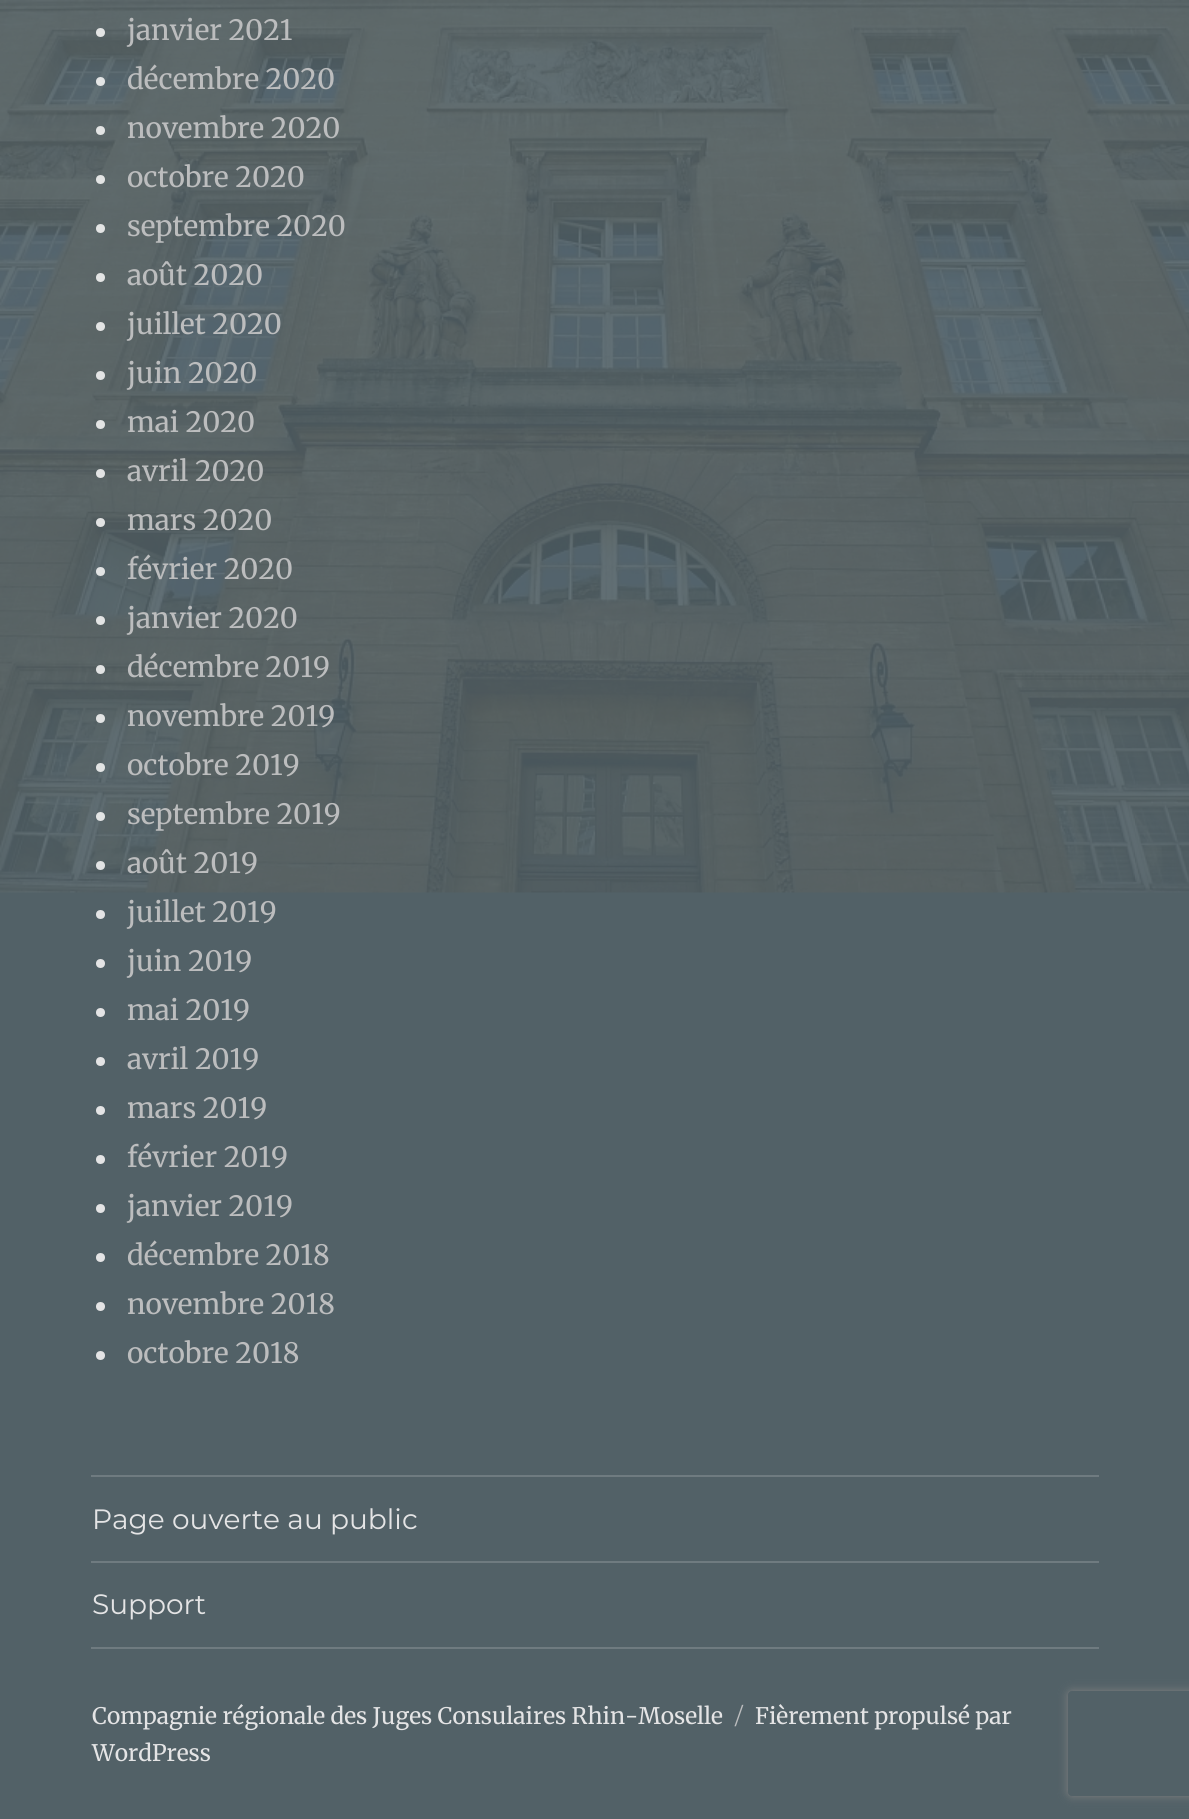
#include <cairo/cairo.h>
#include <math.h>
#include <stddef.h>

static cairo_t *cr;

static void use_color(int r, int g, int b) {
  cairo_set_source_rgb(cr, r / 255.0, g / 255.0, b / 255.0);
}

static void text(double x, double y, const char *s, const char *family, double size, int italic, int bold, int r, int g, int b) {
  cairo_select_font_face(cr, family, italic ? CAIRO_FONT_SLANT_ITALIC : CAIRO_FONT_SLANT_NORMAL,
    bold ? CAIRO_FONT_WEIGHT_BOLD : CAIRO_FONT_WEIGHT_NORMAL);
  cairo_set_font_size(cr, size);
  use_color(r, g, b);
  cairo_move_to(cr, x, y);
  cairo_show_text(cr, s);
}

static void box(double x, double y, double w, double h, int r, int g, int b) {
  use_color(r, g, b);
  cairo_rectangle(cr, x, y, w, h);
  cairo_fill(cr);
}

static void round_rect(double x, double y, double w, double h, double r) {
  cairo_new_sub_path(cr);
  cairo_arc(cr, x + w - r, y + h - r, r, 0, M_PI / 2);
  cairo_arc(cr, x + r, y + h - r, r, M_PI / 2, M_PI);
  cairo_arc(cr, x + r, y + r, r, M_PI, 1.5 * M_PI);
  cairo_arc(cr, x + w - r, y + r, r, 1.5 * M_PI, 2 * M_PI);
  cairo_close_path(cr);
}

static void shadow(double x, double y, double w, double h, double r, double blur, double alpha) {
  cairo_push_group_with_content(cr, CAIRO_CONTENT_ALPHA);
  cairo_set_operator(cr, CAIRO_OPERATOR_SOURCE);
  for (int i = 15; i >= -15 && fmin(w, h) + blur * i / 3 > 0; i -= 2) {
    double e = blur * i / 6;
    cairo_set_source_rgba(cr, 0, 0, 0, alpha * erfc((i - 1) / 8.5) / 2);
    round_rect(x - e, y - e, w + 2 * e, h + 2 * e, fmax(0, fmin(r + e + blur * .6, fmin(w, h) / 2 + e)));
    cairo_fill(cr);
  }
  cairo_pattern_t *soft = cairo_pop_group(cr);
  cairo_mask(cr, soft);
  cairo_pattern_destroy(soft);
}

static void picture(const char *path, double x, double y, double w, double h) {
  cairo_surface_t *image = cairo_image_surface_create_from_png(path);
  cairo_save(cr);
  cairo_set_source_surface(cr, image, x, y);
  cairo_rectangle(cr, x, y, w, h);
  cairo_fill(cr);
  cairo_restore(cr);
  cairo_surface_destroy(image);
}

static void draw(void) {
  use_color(82, 97, 103);
  cairo_paint(cr);
  picture("img_01.png", 0, 0, 1189, 893);
  cairo_set_source_rgba(cr, 0.949, 0.949, 0.949, 0.9);
  cairo_arc(cr, 100.5, 32.5, 4.5, 0, 2 * M_PI);
  cairo_fill(cr);
  cairo_arc(cr, 100.5, 81.5, 4.5, 0, 2 * M_PI);
  cairo_fill(cr);
  cairo_arc(cr, 100.5, 130.5, 4.5, 0, 2 * M_PI);
  cairo_fill(cr);
  cairo_arc(cr, 100.5, 179.5, 4.5, 0, 2 * M_PI);
  cairo_fill(cr);
  cairo_arc(cr, 100.5, 228.5, 4.5, 0, 2 * M_PI);
  cairo_fill(cr);
  use_color(227, 228, 228);
  cairo_arc(cr, 100.5, 277.5, 4.5, 0, 2 * M_PI);
  cairo_fill(cr);
  cairo_arc(cr, 100.5, 326.5, 4.5, 0, 2 * M_PI);
  cairo_fill(cr);
  cairo_set_source_rgba(cr, 0.949, 0.949, 0.949, 0.9);
  cairo_arc(cr, 100.5, 375.5, 4.5, 0, 2 * M_PI);
  cairo_fill(cr);
  cairo_arc(cr, 100.5, 424.5, 4.5, 0, 2 * M_PI);
  cairo_fill(cr);
  cairo_arc(cr, 100.5, 473.5, 4.5, 0, 2 * M_PI);
  cairo_fill(cr);
  cairo_arc(cr, 100.5, 522.5, 4.5, 0, 2 * M_PI);
  cairo_fill(cr);
  cairo_arc(cr, 100.5, 571.5, 4.5, 0, 2 * M_PI);
  cairo_fill(cr);
  cairo_arc(cr, 100.5, 620.5, 4.5, 0, 2 * M_PI);
  cairo_fill(cr);
  cairo_arc(cr, 100.5, 669.5, 4.5, 0, 2 * M_PI);
  cairo_fill(cr);
  cairo_arc(cr, 100.5, 718.5, 4.5, 0, 2 * M_PI);
  cairo_fill(cr);
  cairo_arc(cr, 100.5, 767.5, 4.5, 0, 2 * M_PI);
  cairo_fill(cr);
  cairo_arc(cr, 100.5, 816.5, 4.5, 0, 2 * M_PI);
  cairo_fill(cr);
  cairo_arc(cr, 100.5, 865.5, 4.5, 0, 2 * M_PI);
  cairo_fill(cr);
  use_color(228, 228, 229);
  cairo_arc(cr, 100.5, 914.5, 4.5, 0, 2 * M_PI);
  cairo_fill(cr);
  cairo_arc(cr, 100.5, 963.5, 4.5, 0, 2 * M_PI);
  cairo_fill(cr);
  cairo_arc(cr, 100.5, 1012.5, 4.5, 0, 2 * M_PI);
  cairo_fill(cr);
  cairo_arc(cr, 100.5, 1061.5, 4.5, 0, 2 * M_PI);
  cairo_fill(cr);
  cairo_arc(cr, 100.5, 1110.5, 4.5, 0, 2 * M_PI);
  cairo_fill(cr);
  cairo_arc(cr, 100.5, 1159.5, 4.5, 0, 2 * M_PI);
  cairo_fill(cr);
  cairo_arc(cr, 100.5, 1208.5, 4.5, 0, 2 * M_PI);
  cairo_fill(cr);
  cairo_arc(cr, 100.5, 1257.5, 4.5, 0, 2 * M_PI);
  cairo_fill(cr);
  cairo_arc(cr, 100.5, 1306.5, 4.5, 0, 2 * M_PI);
  cairo_fill(cr);
  cairo_arc(cr, 100.5, 1355.5, 4.5, 0, 2 * M_PI);
  cairo_fill(cr);
  box(91, 1647, 1008, 2, 111, 123, 128);
  box(91, 1475, 1008, 2, 111, 123, 128);
  box(91, 1561, 1008, 2, 111, 123, 128);
  cairo_save(cr);
  cairo_set_fill_rule(cr, CAIRO_FILL_RULE_EVEN_ODD);
  cairo_new_path(cr);
  cairo_move_to(cr, 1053, 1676);
  cairo_line_to(cr, 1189, 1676);
  cairo_line_to(cr, 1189, 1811);
  cairo_line_to(cr, 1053, 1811);
  cairo_close_path(cr);
  cairo_move_to(cr, 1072, 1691);
  cairo_line_to(cr, 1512, 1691);
  cairo_curve_to(cr, 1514, 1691, 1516, 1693, 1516, 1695);
  cairo_line_to(cr, 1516, 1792);
  cairo_curve_to(cr, 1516, 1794, 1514, 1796, 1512, 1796);
  cairo_line_to(cr, 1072, 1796);
  cairo_curve_to(cr, 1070, 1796, 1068, 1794, 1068, 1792);
  cairo_line_to(cr, 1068, 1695);
  cairo_curve_to(cr, 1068, 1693, 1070, 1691, 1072, 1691);
  cairo_close_path(cr);
  cairo_clip(cr);
  use_color(128, 128, 128);
  shadow(1068, 1691, 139, 105, 4, 4.5, 1);
  cairo_restore(cr);
  text(127, 40, "janvier 2021", "Merriweather", 28, 0, 0, 188, 189, 190);
  text(127, 89, "décembre 2020", "Merriweather", 28, 0, 0, 188, 189, 190);
  text(127, 138, "novembre 2020", "Merriweather", 28, 0, 0, 188, 189, 190);
  text(127, 187, "octobre 2020", "Merriweather", 28, 0, 0, 188, 189, 190);
  text(127, 236, "septembre 2020", "Merriweather", 28, 0, 0, 188, 189, 190);
  text(127, 285, "août 2020", "Merriweather", 28, 0, 0, 188, 189, 190);
  text(127, 334, "juillet 2020", "Merriweather", 28, 0, 0, 188, 189, 190);
  text(127, 383, "juin 2020", "Merriweather", 28, 0, 0, 188, 189, 190);
  text(127, 432, "mai 2020", "Merriweather", 28, 0, 0, 188, 189, 190);
  text(127, 481, "avril 2020", "Merriweather", 28, 0, 0, 188, 189, 190);
  text(127, 530, "mars 2020", "Merriweather", 28, 0, 0, 188, 189, 190);
  text(127, 579, "février 2020", "Merriweather", 28, 0, 0, 188, 189, 190);
  text(127, 628, "janvier 2020", "Merriweather", 28, 0, 0, 188, 189, 190);
  text(127, 677, "décembre 2019", "Merriweather", 28, 0, 0, 188, 189, 190);
  text(127, 726, "novembre 2019", "Merriweather", 28, 0, 0, 188, 189, 190);
  text(127, 775, "octobre 2019", "Merriweather", 28, 0, 0, 188, 189, 190);
  text(127, 824, "septembre 2019", "Merriweather", 28, 0, 0, 188, 189, 190);
  text(127, 873, "août 2019", "Merriweather", 28, 0, 0, 188, 189, 190);
  text(127, 922, "juillet 2019", "Merriweather", 28, 0, 0, 188, 189, 190);
  text(127, 971, "juin 2019", "Merriweather", 28, 0, 0, 188, 189, 190);
  text(127, 1020, "mai 2019", "Merriweather", 28, 0, 0, 188, 189, 190);
  text(127, 1069, "avril 2019", "Merriweather", 28, 0, 0, 188, 189, 190);
  text(127, 1118, "mars 2019", "Merriweather", 28, 0, 0, 188, 189, 190);
  text(127, 1167, "février 2019", "Merriweather", 28, 0, 0, 188, 189, 190);
  text(127, 1216, "janvier 2019", "Merriweather", 28, 0, 0, 188, 189, 190);
  text(127, 1265, "décembre 2018", "Merriweather", 28, 0, 0, 188, 189, 190);
  text(127, 1314, "novembre 2018", "Merriweather", 28, 0, 0, 188, 189, 190);
  text(127, 1363, "octobre 2018", "Merriweather", 28, 0, 0, 188, 189, 190);
  text(92, 1529, "Page ouverte au public", "Montserrat", 28, 0, 0, 228, 228, 229);
  text(92, 1614, "Support", "Montserrat", 28, 0, 0, 228, 228, 229);
  text(92, 1724, "Compagnie régionale des Juges Consulaires Rhin-Moselle", "Merriweather", 22.75, 0, 0, 228, 228, 229);
  text(735, 1724, "/", "Montserrat", 22.75, 0, 0, 188, 189, 190);
  text(755, 1724, "Fièrement propulsé par", "Merriweather", 22.75, 0, 0, 228, 228, 229);
  text(92, 1761, "WordPress", "Merriweather", 22.75, 0, 0, 228, 228, 229);
}

int main(void) {
  cairo_surface_t *surface = cairo_image_surface_create(CAIRO_FORMAT_RGB24, 1189, 1819);
  cr = cairo_create(surface);
  cairo_font_options_t *options = cairo_font_options_create();
  cairo_font_options_set_hint_metrics(options, CAIRO_HINT_METRICS_OFF);
  cairo_font_options_set_hint_style(options, CAIRO_HINT_STYLE_NONE);
  cairo_set_font_options(cr, options);
  cairo_set_miter_limit(cr, 4);
  draw();
  cairo_surface_write_to_png(surface, "out.png");
  cairo_font_options_destroy(options);
  cairo_destroy(cr);
  cairo_surface_destroy(surface);
  return 0;
}
